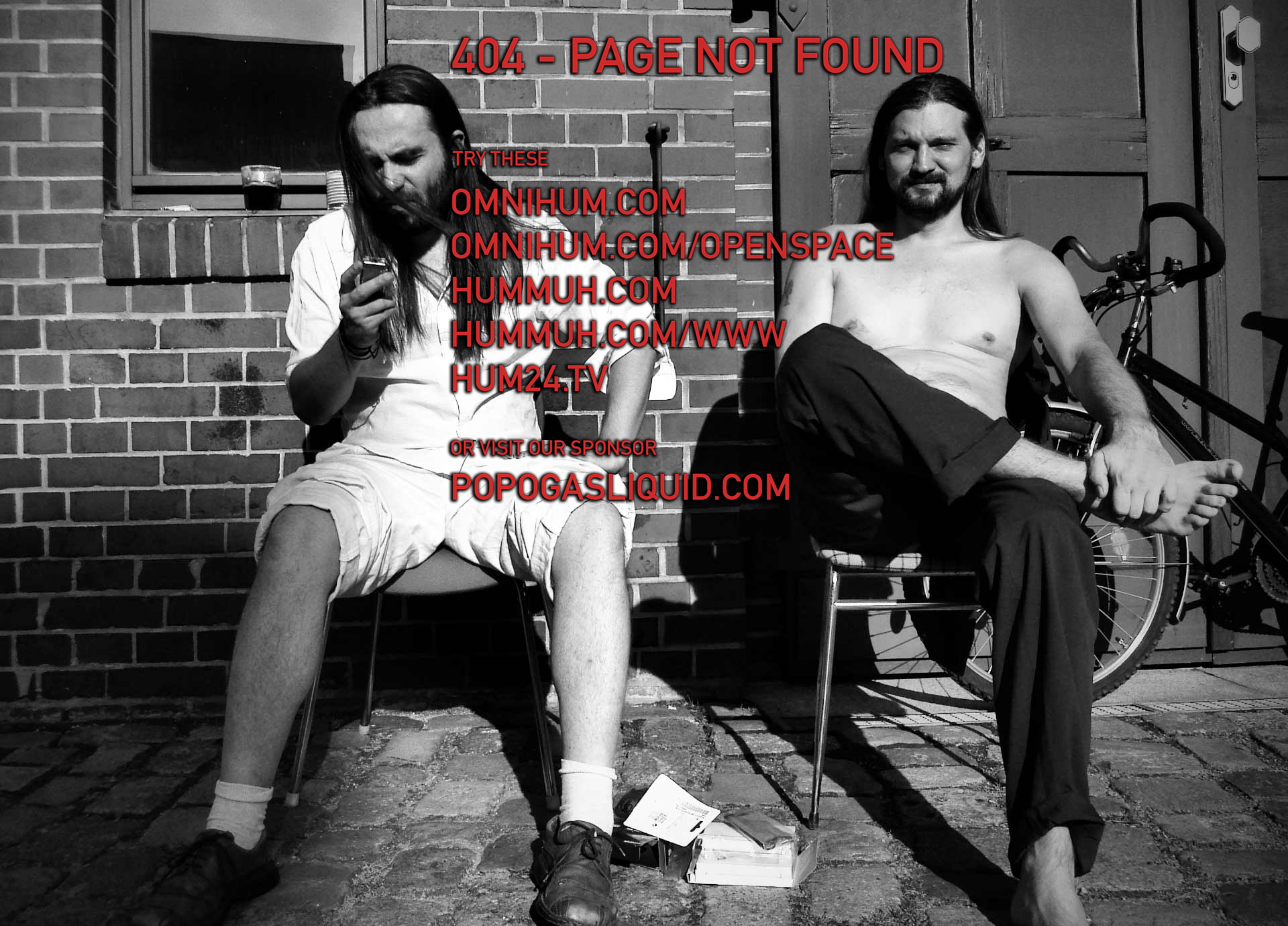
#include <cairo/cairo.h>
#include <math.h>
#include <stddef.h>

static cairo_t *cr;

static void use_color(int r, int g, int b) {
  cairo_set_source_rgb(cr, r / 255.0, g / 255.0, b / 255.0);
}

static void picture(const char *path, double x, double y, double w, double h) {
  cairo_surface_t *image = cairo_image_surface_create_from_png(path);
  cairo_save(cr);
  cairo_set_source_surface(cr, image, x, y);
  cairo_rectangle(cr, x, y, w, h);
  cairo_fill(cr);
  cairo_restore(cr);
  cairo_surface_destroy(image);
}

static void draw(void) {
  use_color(255, 255, 255);
  cairo_paint(cr);
  picture("img_01.png", 0, 0, 1288, 926);
  picture("img_02.png", 446, 34, 499, 470);
}

int main(void) {
  cairo_surface_t *surface = cairo_image_surface_create(CAIRO_FORMAT_RGB24, 1288, 926);
  cr = cairo_create(surface);
  cairo_font_options_t *options = cairo_font_options_create();
  cairo_font_options_set_hint_metrics(options, CAIRO_HINT_METRICS_OFF);
  cairo_font_options_set_hint_style(options, CAIRO_HINT_STYLE_NONE);
  cairo_set_font_options(cr, options);
  cairo_set_miter_limit(cr, 4);
  draw();
  cairo_surface_write_to_png(surface, "out.png");
  cairo_font_options_destroy(options);
  cairo_destroy(cr);
  cairo_surface_destroy(surface);
  return 0;
}
